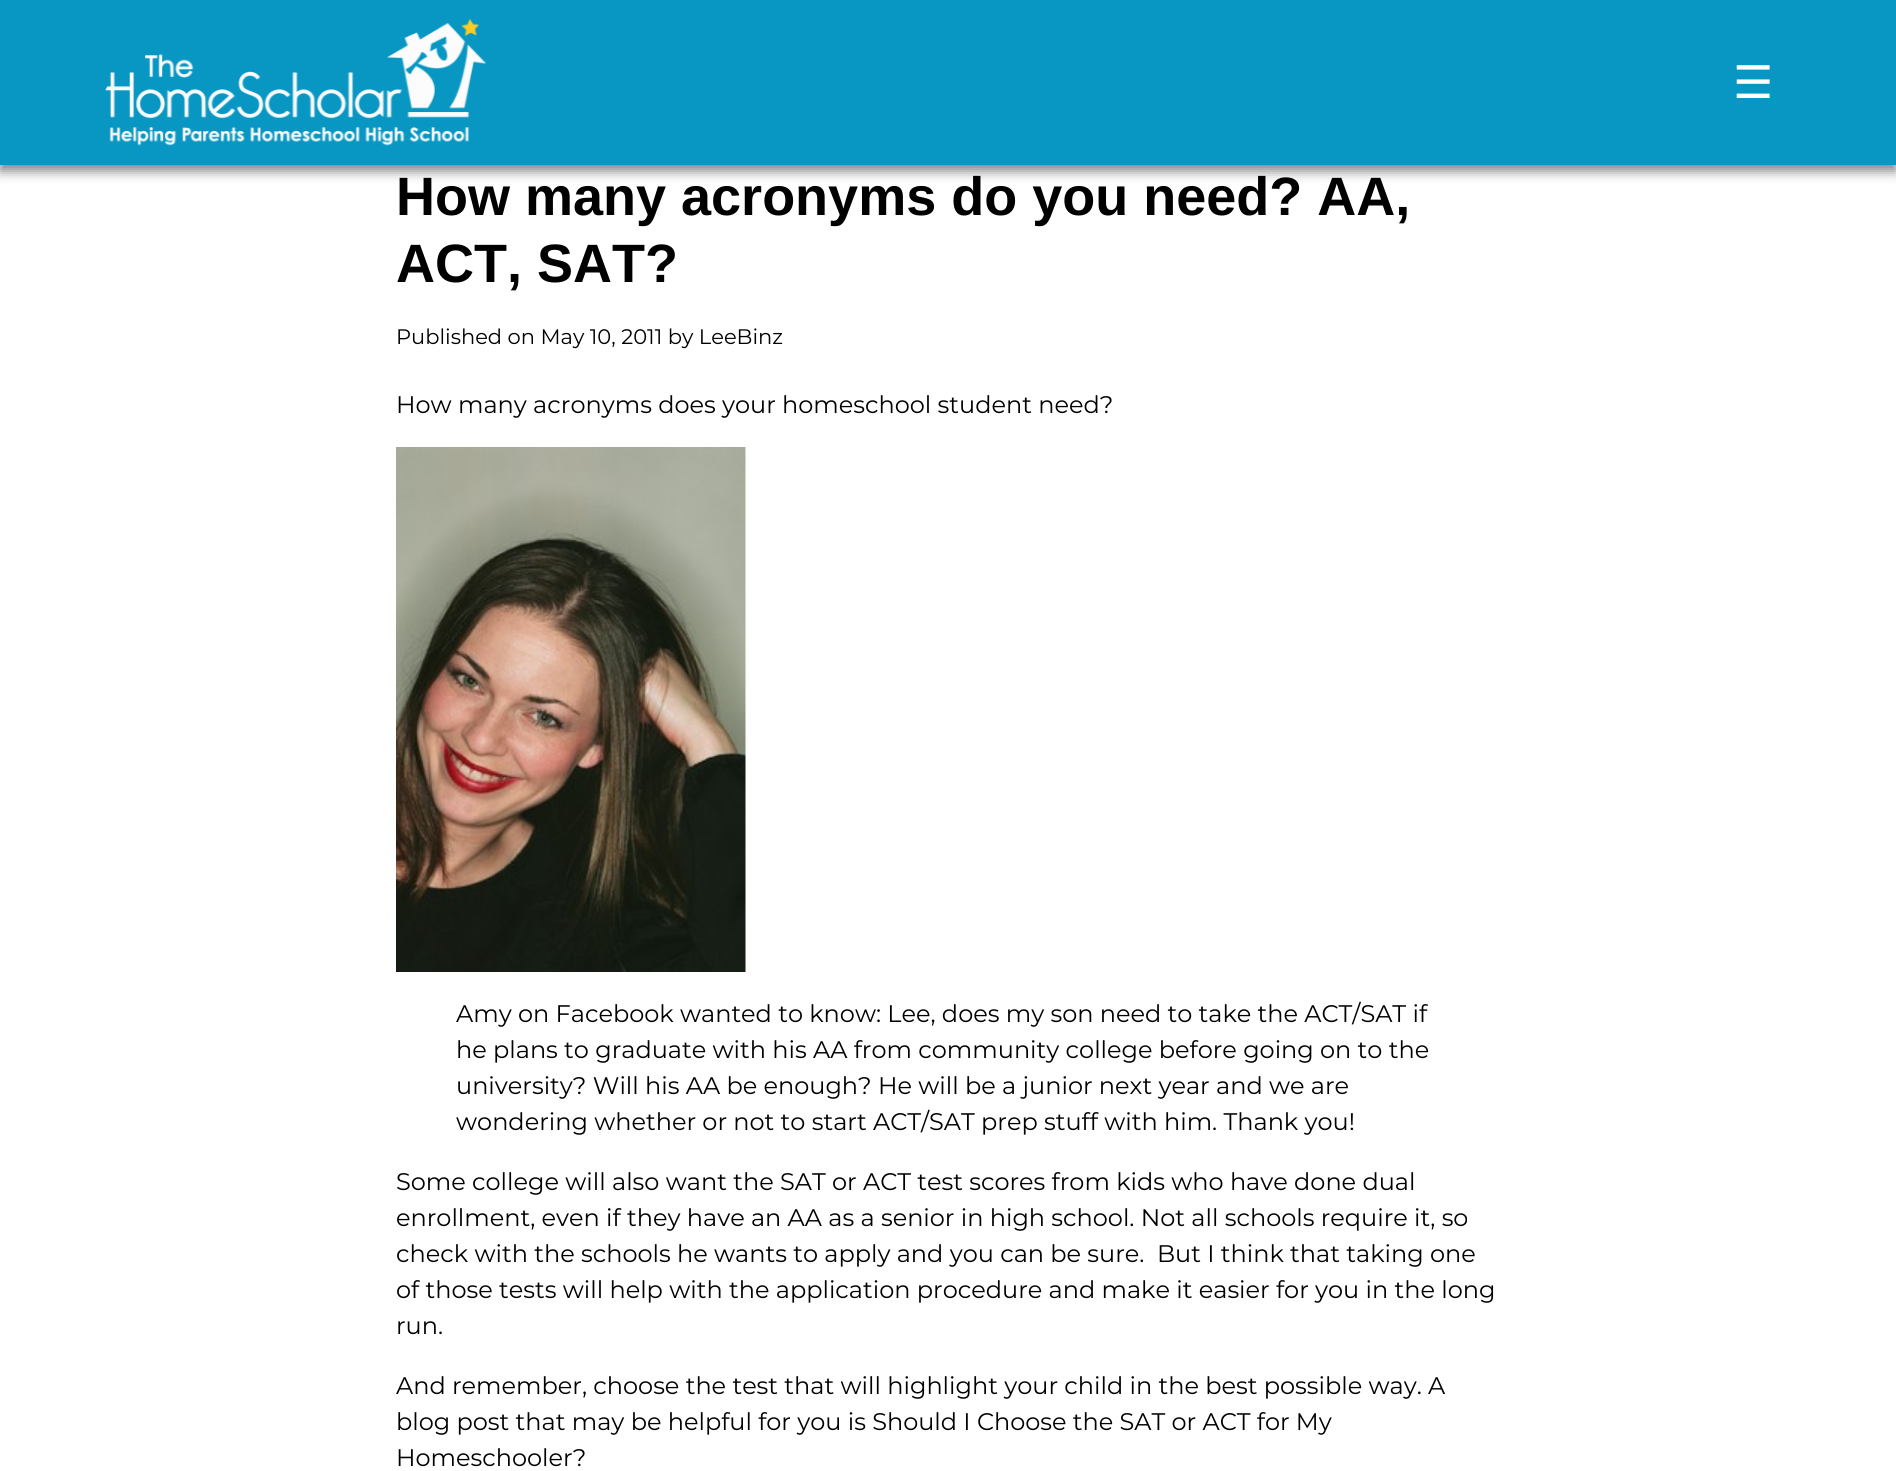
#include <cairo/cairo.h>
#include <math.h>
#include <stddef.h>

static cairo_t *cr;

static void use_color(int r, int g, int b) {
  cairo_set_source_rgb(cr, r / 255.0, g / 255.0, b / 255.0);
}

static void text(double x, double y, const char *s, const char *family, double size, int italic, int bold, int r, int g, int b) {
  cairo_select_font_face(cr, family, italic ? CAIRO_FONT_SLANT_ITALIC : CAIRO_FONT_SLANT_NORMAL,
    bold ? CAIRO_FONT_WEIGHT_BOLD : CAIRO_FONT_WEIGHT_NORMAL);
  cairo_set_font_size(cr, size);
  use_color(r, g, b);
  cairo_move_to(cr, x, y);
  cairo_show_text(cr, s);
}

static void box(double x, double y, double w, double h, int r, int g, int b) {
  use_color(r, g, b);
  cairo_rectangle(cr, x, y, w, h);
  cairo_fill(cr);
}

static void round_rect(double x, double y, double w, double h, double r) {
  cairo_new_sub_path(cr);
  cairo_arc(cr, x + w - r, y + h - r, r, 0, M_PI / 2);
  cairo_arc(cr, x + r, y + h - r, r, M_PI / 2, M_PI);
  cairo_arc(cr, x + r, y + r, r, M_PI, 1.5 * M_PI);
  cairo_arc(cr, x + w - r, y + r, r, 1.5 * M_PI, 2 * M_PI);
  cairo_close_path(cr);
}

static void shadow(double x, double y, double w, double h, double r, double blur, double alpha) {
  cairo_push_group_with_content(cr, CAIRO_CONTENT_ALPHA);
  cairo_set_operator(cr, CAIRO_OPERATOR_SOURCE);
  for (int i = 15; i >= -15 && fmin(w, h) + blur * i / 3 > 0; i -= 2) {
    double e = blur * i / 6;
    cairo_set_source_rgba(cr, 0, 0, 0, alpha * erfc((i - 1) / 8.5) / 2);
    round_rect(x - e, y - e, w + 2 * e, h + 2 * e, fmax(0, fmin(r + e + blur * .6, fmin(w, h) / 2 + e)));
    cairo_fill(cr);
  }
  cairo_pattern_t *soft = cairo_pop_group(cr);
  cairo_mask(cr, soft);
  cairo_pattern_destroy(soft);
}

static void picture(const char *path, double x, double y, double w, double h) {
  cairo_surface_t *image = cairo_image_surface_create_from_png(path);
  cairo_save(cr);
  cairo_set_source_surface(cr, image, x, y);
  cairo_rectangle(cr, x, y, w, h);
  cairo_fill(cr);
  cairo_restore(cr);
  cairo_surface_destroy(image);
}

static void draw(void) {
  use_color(255, 255, 255);
  cairo_paint(cr);
  use_color(0, 0, 0);
  shadow(0, 6, 1896, 165, 0, 6, 0.5);
  box(0, 0, 1896, 165, 8, 151, 195);
  picture("img_01.png", 105, 19, 381, 127);
  picture("img_02.png", 396, 447, 350, 525);
  text(1733, 98, "☰", "DejaVu Sans", 45, 0, 0, 255, 255, 255);
  text(396, 215, "How many acronyms do you need? AA,", "Liberation Sans", 54, 0, 1, 0, 0, 0);
  text(396, 282, "ACT, SAT?", "Liberation Sans", 54, 0, 1, 0, 0, 0);
  text(396, 344, "Published on May 10, 2011 by LeeBinz", "Montserrat", 21, 0, 0, 0, 0, 0);
  text(396, 413, "How many acronyms does your homeschool student need?", "Montserrat", 24, 0, 0, 0, 0, 0);
  text(456, 1022, "Amy on Facebook wanted to know: Lee, does my son need to take the ACT/SAT if", "Montserrat", 24, 0, 0, 0, 0, 0);
  text(456, 1058, "he plans to graduate with his AA from community college before going on to the", "Montserrat", 24, 0, 0, 0, 0, 0);
  text(456, 1094, "university? Will his AA be enough? He will be a junior next year and we are", "Montserrat", 24, 0, 0, 0, 0, 0);
  text(456, 1130, "wondering whether or not to start ACT/SAT prep stuff with him. Thank you!", "Montserrat", 24, 0, 0, 0, 0, 0);
  text(396, 1190, "Some college will also want the SAT or ACT test scores from kids who have done dual", "Montserrat", 24, 0, 0, 0, 0, 0);
  text(396, 1226, "enrollment, even if they have an AA as a senior in high school. Not all schools require it, so", "Montserrat", 24, 0, 0, 0, 0, 0);
  text(396, 1262, "check with the schools he wants to apply and you can be sure.  But I think that taking one", "Montserrat", 24, 0, 0, 0, 0, 0);
  text(396, 1298, "of those tests will help with the application procedure and make it easier for you in the long", "Montserrat", 24, 0, 0, 0, 0, 0);
  text(396, 1334, "run.", "Montserrat", 24, 0, 0, 0, 0, 0);
  text(396, 1394, "And remember, choose the test that will highlight your child in the best possible way. A", "Montserrat", 24, 0, 0, 0, 0, 0);
  text(396, 1430, "blog post that may be helpful for you is Should I Choose the SAT or ACT for My", "Montserrat", 24, 0, 0, 0, 0, 0);
  text(396, 1466, "Homeschooler?", "Montserrat", 24, 0, 0, 0, 0, 0);
}

int main(void) {
  cairo_surface_t *surface = cairo_image_surface_create(CAIRO_FORMAT_RGB24, 1896, 1471);
  cr = cairo_create(surface);
  cairo_font_options_t *options = cairo_font_options_create();
  cairo_font_options_set_hint_metrics(options, CAIRO_HINT_METRICS_OFF);
  cairo_font_options_set_hint_style(options, CAIRO_HINT_STYLE_NONE);
  cairo_set_font_options(cr, options);
  cairo_set_miter_limit(cr, 4);
  draw();
  cairo_surface_write_to_png(surface, "out.png");
  cairo_font_options_destroy(options);
  cairo_destroy(cr);
  cairo_surface_destroy(surface);
  return 0;
}
